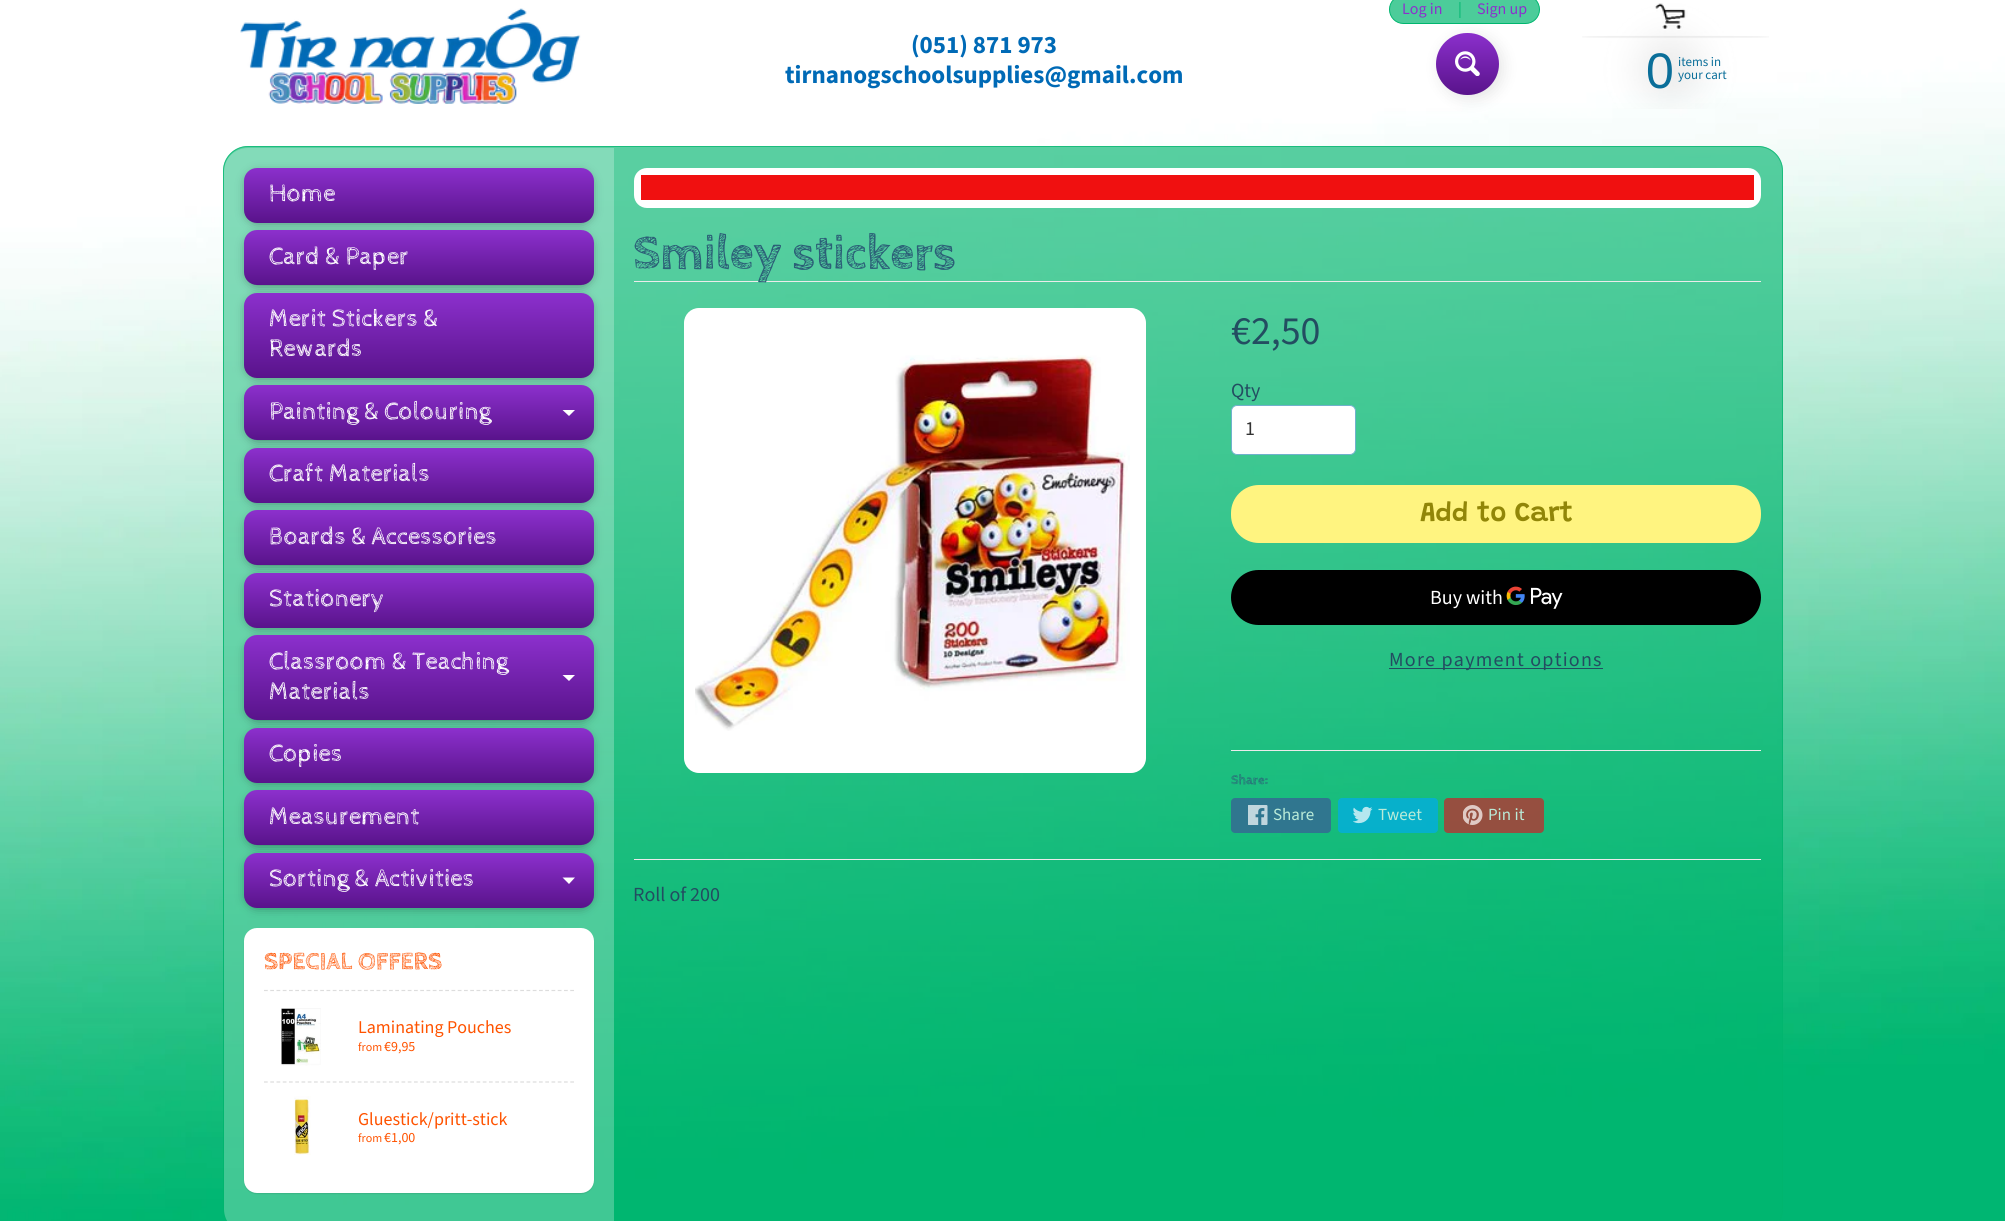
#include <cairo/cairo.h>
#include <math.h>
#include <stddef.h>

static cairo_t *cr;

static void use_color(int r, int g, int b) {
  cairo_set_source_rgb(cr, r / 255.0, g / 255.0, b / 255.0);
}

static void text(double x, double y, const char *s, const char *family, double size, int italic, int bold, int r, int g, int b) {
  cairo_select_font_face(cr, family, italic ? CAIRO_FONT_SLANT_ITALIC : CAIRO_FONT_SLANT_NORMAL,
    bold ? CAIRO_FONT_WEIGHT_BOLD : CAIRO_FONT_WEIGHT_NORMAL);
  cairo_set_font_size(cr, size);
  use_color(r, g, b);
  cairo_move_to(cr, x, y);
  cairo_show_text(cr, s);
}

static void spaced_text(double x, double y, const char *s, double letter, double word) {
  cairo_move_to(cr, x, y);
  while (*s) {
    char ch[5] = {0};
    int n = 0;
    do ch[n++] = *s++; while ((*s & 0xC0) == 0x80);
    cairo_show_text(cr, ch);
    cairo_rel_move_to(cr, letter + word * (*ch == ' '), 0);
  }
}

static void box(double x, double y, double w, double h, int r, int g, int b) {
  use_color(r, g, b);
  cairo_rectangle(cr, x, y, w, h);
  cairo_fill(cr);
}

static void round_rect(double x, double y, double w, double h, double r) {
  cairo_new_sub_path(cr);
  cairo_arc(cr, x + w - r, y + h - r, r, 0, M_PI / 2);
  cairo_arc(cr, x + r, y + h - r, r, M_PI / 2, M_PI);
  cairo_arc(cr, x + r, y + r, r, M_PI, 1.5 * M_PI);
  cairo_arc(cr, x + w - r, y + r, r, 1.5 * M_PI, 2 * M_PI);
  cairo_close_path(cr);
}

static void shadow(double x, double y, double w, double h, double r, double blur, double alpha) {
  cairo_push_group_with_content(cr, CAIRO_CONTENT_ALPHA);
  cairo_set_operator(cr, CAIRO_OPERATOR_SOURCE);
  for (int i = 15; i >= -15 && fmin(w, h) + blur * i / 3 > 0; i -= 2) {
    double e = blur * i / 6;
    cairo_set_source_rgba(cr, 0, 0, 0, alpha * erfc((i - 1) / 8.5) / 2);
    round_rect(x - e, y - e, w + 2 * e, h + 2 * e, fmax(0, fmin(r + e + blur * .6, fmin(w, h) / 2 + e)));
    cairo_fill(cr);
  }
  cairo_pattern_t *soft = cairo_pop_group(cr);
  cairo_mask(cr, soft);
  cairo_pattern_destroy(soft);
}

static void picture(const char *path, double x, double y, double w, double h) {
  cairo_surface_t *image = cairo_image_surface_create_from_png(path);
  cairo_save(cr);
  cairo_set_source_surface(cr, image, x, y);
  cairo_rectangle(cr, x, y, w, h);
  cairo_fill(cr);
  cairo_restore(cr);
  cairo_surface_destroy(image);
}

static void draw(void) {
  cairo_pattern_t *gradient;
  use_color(255, 255, 255);
  cairo_paint(cr);
  picture("img_01.png", 0, 0, 2005, 1221);
  use_color(0, 0, 0);
  shadow(1440, 36, 63, 63, 31.5, 7.5, 0.1);
  use_color(76, 204, 154);
  round_rect(1389.5, -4.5, 150, 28, 14);
  cairo_fill_preserve(cr);
  use_color(0, 182, 111);
  cairo_set_line_width(cr, 1);
  cairo_stroke(cr);
  picture("img_02.png", 240, 8, 341, 96);
  gradient = cairo_pattern_create_linear(1468, 32, 1468, 95);
  cairo_pattern_add_color_stop_rgba(gradient, 0, 0.549, 0.188, 0.804, 1);
  cairo_pattern_add_color_stop_rgba(gradient, 1, 0.349, 0.075, 0.545, 1);
  cairo_set_source(cr, gradient);
  cairo_pattern_destroy(gradient);
  round_rect(1436, 33, 63, 62, 31);
  cairo_fill(cr);
  picture("img_03.png", 1455, 51, 25, 25);
  picture("img_04.png", 1582, 3, 187, 106);
  cairo_set_source_rgba(cr, 0, 0.714, 0.435, 0.65);
  round_rect(223, 146, 1560, 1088, 25);
  cairo_fill(cr);
  round_rect(223.5, 146.5, 1559, 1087, 24.5);
  cairo_set_source_rgba(cr, 0, 0.714, 0.435, 0.7);
  cairo_stroke(cr);
  cairo_set_source_rgba(cr, 1, 1, 1, 0.25);
  cairo_new_path(cr);
  cairo_move_to(cr, 248, 148);
  cairo_line_to(cr, 614, 148);
  cairo_line_to(cr, 614, 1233);
  cairo_line_to(cr, 248, 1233);
  cairo_curve_to(cr, 234.5, 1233, 224, 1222.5, 224, 1209);
  cairo_line_to(cr, 224, 172);
  cairo_curve_to(cr, 224, 158.5, 234.5, 148, 248, 148);
  cairo_close_path(cr);
  cairo_fill(cr);
  use_color(0, 0, 0);
  shadow(249, 175, 340, 45, 8, 6, 0.6);
  gradient = cairo_pattern_create_linear(419, 167, 419, 223);
  cairo_pattern_add_color_stop_rgba(gradient, 0, 0.549, 0.188, 0.804, 1);
  cairo_pattern_add_color_stop_rgba(gradient, 1, 0.349, 0.075, 0.545, 1);
  cairo_set_source(cr, gradient);
  cairo_pattern_destroy(gradient);
  round_rect(244, 168, 350, 55, 13);
  cairo_fill(cr);
  use_color(0, 0, 0);
  shadow(249, 238, 340, 45, 8, 6, 0.6);
  gradient = cairo_pattern_create_linear(419, 230, 419, 285);
  cairo_pattern_add_color_stop_rgba(gradient, 0, 0.549, 0.188, 0.804, 1);
  cairo_pattern_add_color_stop_rgba(gradient, 1, 0.349, 0.075, 0.545, 1);
  cairo_set_source(cr, gradient);
  cairo_pattern_destroy(gradient);
  round_rect(244, 230, 350, 55, 13);
  cairo_fill(cr);
  use_color(0, 0, 0);
  shadow(249, 300, 340, 75, 8, 6, 0.6);
  gradient = cairo_pattern_create_linear(419, 293, 419, 378);
  cairo_pattern_add_color_stop_rgba(gradient, 0, 0.549, 0.188, 0.804, 1);
  cairo_pattern_add_color_stop_rgba(gradient, 1, 0.349, 0.075, 0.545, 1);
  cairo_set_source(cr, gradient);
  cairo_pattern_destroy(gradient);
  round_rect(244, 293, 350, 85, 13);
  cairo_fill(cr);
  use_color(0, 0, 0);
  shadow(249, 393, 340, 45, 8, 6, 0.6);
  gradient = cairo_pattern_create_linear(419, 385, 419, 440);
  cairo_pattern_add_color_stop_rgba(gradient, 0, 0.549, 0.188, 0.804, 1);
  cairo_pattern_add_color_stop_rgba(gradient, 1, 0.349, 0.075, 0.545, 1);
  cairo_set_source(cr, gradient);
  cairo_pattern_destroy(gradient);
  round_rect(244, 385, 350, 55, 13);
  cairo_fill(cr);
  use_color(255, 255, 255);
  cairo_new_path(cr);
  cairo_move_to(cr, 562.5, 410);
  cairo_line_to(cr, 575, 410);
  cairo_line_to(cr, 569, 416);
  cairo_close_path(cr);
  cairo_fill(cr);
  use_color(0, 0, 0);
  shadow(249, 455, 340, 45, 8, 6, 0.6);
  gradient = cairo_pattern_create_linear(419, 448, 419, 503);
  cairo_pattern_add_color_stop_rgba(gradient, 0, 0.549, 0.188, 0.804, 1);
  cairo_pattern_add_color_stop_rgba(gradient, 1, 0.349, 0.075, 0.545, 1);
  cairo_set_source(cr, gradient);
  cairo_pattern_destroy(gradient);
  round_rect(244, 448, 350, 55, 13);
  cairo_fill(cr);
  use_color(0, 0, 0);
  shadow(249, 518, 340, 45, 8, 6, 0.6);
  gradient = cairo_pattern_create_linear(419, 510, 419, 565);
  cairo_pattern_add_color_stop_rgba(gradient, 0, 0.549, 0.188, 0.804, 1);
  cairo_pattern_add_color_stop_rgba(gradient, 1, 0.349, 0.075, 0.545, 1);
  cairo_set_source(cr, gradient);
  cairo_pattern_destroy(gradient);
  round_rect(244, 510, 350, 55, 13);
  cairo_fill(cr);
  use_color(0, 0, 0);
  shadow(249, 580, 340, 45, 8, 6, 0.6);
  gradient = cairo_pattern_create_linear(419, 573, 419, 628);
  cairo_pattern_add_color_stop_rgba(gradient, 0, 0.549, 0.188, 0.804, 1);
  cairo_pattern_add_color_stop_rgba(gradient, 1, 0.349, 0.075, 0.545, 1);
  cairo_set_source(cr, gradient);
  cairo_pattern_destroy(gradient);
  round_rect(244, 573, 350, 55, 13);
  cairo_fill(cr);
  use_color(0, 0, 0);
  shadow(249, 643, 340, 75, 8, 6, 0.6);
  gradient = cairo_pattern_create_linear(419, 635, 419, 720);
  cairo_pattern_add_color_stop_rgba(gradient, 0, 0.549, 0.188, 0.804, 1);
  cairo_pattern_add_color_stop_rgba(gradient, 1, 0.349, 0.075, 0.545, 1);
  cairo_set_source(cr, gradient);
  cairo_pattern_destroy(gradient);
  round_rect(244, 635, 350, 85, 13);
  cairo_fill(cr);
  use_color(255, 255, 255);
  cairo_new_path(cr);
  cairo_move_to(cr, 562.5, 675);
  cairo_line_to(cr, 575, 675);
  cairo_line_to(cr, 569, 681);
  cairo_close_path(cr);
  cairo_fill(cr);
  use_color(0, 0, 0);
  shadow(249, 735, 340, 45, 8, 6, 0.6);
  gradient = cairo_pattern_create_linear(419, 728, 419, 783);
  cairo_pattern_add_color_stop_rgba(gradient, 0, 0.549, 0.188, 0.804, 1);
  cairo_pattern_add_color_stop_rgba(gradient, 1, 0.349, 0.075, 0.545, 1);
  cairo_set_source(cr, gradient);
  cairo_pattern_destroy(gradient);
  round_rect(244, 728, 350, 55, 13);
  cairo_fill(cr);
  use_color(0, 0, 0);
  shadow(249, 798, 340, 45, 8, 6, 0.6);
  gradient = cairo_pattern_create_linear(419, 790, 419, 845);
  cairo_pattern_add_color_stop_rgba(gradient, 0, 0.549, 0.188, 0.804, 1);
  cairo_pattern_add_color_stop_rgba(gradient, 1, 0.349, 0.075, 0.545, 1);
  cairo_set_source(cr, gradient);
  cairo_pattern_destroy(gradient);
  round_rect(244, 790, 350, 55, 13);
  cairo_fill(cr);
  use_color(0, 0, 0);
  shadow(249, 860, 340, 45, 8, 6, 0.6);
  gradient = cairo_pattern_create_linear(419, 853, 419, 908);
  cairo_pattern_add_color_stop_rgba(gradient, 0, 0.549, 0.188, 0.804, 1);
  cairo_pattern_add_color_stop_rgba(gradient, 1, 0.349, 0.075, 0.545, 1);
  cairo_set_source(cr, gradient);
  cairo_pattern_destroy(gradient);
  round_rect(244, 853, 350, 55, 13);
  cairo_fill(cr);
  use_color(255, 255, 255);
  cairo_new_path(cr);
  cairo_move_to(cr, 562.5, 877.5);
  cairo_line_to(cr, 575, 877.5);
  cairo_line_to(cr, 569, 884);
  cairo_close_path(cr);
  cairo_fill(cr);
  use_color(0, 0, 0);
  shadow(244, 929, 350, 265, 13, 0.5, 0.1);
  use_color(255, 255, 255);
  round_rect(244, 928, 350, 265, 13);
  cairo_fill(cr);
  cairo_new_path(cr);
  cairo_move_to(cr, 264, 990.5);
  cairo_line_to(cr, 574, 990.5);
  use_color(221, 221, 221);
  cairo_set_line_width(cr, 1.2);
  cairo_set_dash(cr, (double[]){3.75, 2.5}, 2, 0);
  cairo_stroke(cr);
  picture("img_05.png", 281, 1008, 40, 58);
  cairo_new_path(cr);
  cairo_move_to(cr, 264, 1082);
  cairo_line_to(cr, 574, 1082);
  cairo_stroke(cr);
  picture("img_06.png", 294, 1096, 17, 59);
  use_color(255, 255, 255);
  round_rect(634, 168, 1127, 40, 13);
  cairo_fill(cr);
  box(641, 175, 1113, 25, 240, 16, 16);
  box(634, 281, 1127, 1, 235, 235, 235);
  use_color(255, 255, 255);
  round_rect(684, 308, 462, 465, 15);
  cairo_fill(cr);
  picture("img_07.png", 695, 355, 435, 376);
  round_rect(1231.5, 405.5, 124, 49, 5.5);
  cairo_fill_preserve(cr);
  use_color(112, 177, 204);
  cairo_set_line_width(cr, 1);
  cairo_set_dash(cr, NULL, 0, 0);
  cairo_stroke(cr);
  use_color(255, 244, 128);
  round_rect(1231, 485, 530, 58, 28);
  cairo_fill(cr);
  use_color(0, 0, 0);
  round_rect(1231, 570, 530, 55, 27.5);
  cairo_fill(cr);
  picture("img_08.png", 1506, 586, 57, 23);
  box(1389, 668, 214, 1, 35, 77, 97);
  box(1231, 750, 530, 1, 235, 235, 235);
  cairo_set_source_rgba(cr, 0.231, 0.349, 0.596, 0.7);
  round_rect(1231, 798, 100, 35, 4);
  cairo_fill(cr);
  picture("img_09.png", 1248, 805, 20, 20);
  cairo_set_source_rgba(cr, 0, 0.675, 0.929, 0.7);
  round_rect(1338, 798, 100, 35, 4);
  cairo_fill(cr);
  picture("img_10.png", 1353, 806, 20, 18);
  cairo_set_source_rgba(cr, 0.8, 0.129, 0.153, 0.7);
  round_rect(1444, 798, 100, 35, 4);
  cairo_fill(cr);
  picture("img_11.png", 1463, 805, 20, 20);
  box(634, 859, 1127, 1, 235, 235, 235);
  text(1402, 14, "Log in", "Source Sans Pro", 16, 0, 0, 140, 48, 205);
  text(1458, 14, "|", "Source Sans Pro", 16, 0, 0, 0, 182, 111);
  text(1477, 14, "Sign up", "Source Sans Pro", 16, 0, 0, 140, 48, 205);
  text(911, 53, "(051) 871 973", "Source Sans Pro", 25, 0, 1, 0, 106, 182);
  text(785, 83, "tirnanogschoolsupplies@gmail.com", "Source Sans Pro", 25, 0, 1, 0, 106, 182);
  text(1646, 88, "0", "Liberation Sans", 50, 0, 0, 10, 110, 153);
  text(1678, 66, "items in", "Source Sans Pro", 13, 0, 0, 10, 110, 153);
  text(1678, 79, "your cart", "Source Sans Pro", 13, 0, 0, 10, 110, 153);
  text(269, 201, "Home", "Cabin Sketch", 25, 0, 0, 255, 255, 255);
  text(269, 264, "Card & Paper", "Cabin Sketch", 25, 0, 0, 255, 255, 255);
  text(269, 326, "Merit Stickers &", "Cabin Sketch", 25, 0, 0, 255, 255, 255);
  text(269, 356, "Rewards", "Cabin Sketch", 25, 0, 0, 255, 255, 255);
  text(269, 419, "Painting & Colouring", "Cabin Sketch", 25, 0, 0, 255, 255, 255);
  text(269, 481, "Craft Materials", "Cabin Sketch", 25, 0, 0, 255, 255, 255);
  text(269, 544, "Boards & Accessories", "Cabin Sketch", 25, 0, 0, 255, 255, 255);
  text(269, 606, "Stationery", "Cabin Sketch", 25, 0, 0, 255, 255, 255);
  text(269, 669, "Classroom & Teaching", "Cabin Sketch", 25, 0, 0, 255, 255, 255);
  text(269, 699, "Materials", "Cabin Sketch", 25, 0, 0, 255, 255, 255);
  text(269, 761, "Copies", "Cabin Sketch", 25, 0, 0, 255, 255, 255);
  text(269, 824, "Measurement", "Cabin Sketch", 25, 0, 0, 255, 255, 255);
  text(269, 886, "Sorting & Activities", "Cabin Sketch", 25, 0, 0, 255, 255, 255);
  text(264, 969, "SPECIAL OFFERS", "Cabin Sketch", 25, 0, 1, 255, 83, 0);
  text(358, 1033, "Laminating Pouches", "Source Sans Pro", 18, 0, 0, 255, 83, 0);
  text(358, 1051, "from", "Source Sans Pro", 12, 0, 0, 255, 83, 0);
  text(384, 1051, "€9,95", "Source Sans Pro", 14, 0, 0, 255, 83, 0);
  text(358, 1125, "Gluestick/pritt-stick", "Source Sans Pro", 18, 0, 0, 255, 83, 0);
  text(358, 1142, "from", "Source Sans Pro", 12, 0, 0, 255, 83, 0);
  text(384, 1142, "€1,00", "Source Sans Pro", 14, 0, 0, 255, 83, 0);
  text(633, 268, "Smiley stickers", "Cabin Sketch", 48.75, 0, 1, 43, 95, 119);
  text(1231, 344, "€2,50", "Source Sans Pro", 40, 0, 0, 35, 77, 97);
  text(1231, 397, "Qty", "Source Sans Pro", 20, 0, 0, 35, 77, 97);
  text(1245, 435, "1", "Source Sans Pro", 20, 0, 0, 51, 51, 51);
  text(1420, 521, "Add to Cart", "Grandstander SemiBold", 27.5, 0, 0, 145, 134, 8);
  text(1430, 604, "Buy with", "Source Sans Pro", 20, 0, 0, 255, 255, 255);
  use_color(35, 77, 97);
  spaced_text(1389, 666, "More payment options", 1.25, 0);
  text(1231, 784, "Share:", "Cabin Sketch", 13.5, 0, 1, 43, 95, 119);
  text(1273, 820, "Share", "Source Sans Pro", 17, 0, 0, 186, 235, 216);
  text(1378, 820, "Tweet", "Source Sans Pro", 17, 0, 0, 186, 235, 216);
  text(1488, 820, "Pin it", "Source Sans Pro", 17, 0, 0, 186, 235, 216);
  text(633, 901, "Roll of 200", "Source Sans Pro", 20, 0, 0, 35, 77, 97);
}

int main(void) {
  cairo_surface_t *surface = cairo_image_surface_create(CAIRO_FORMAT_RGB24, 2005, 1221);
  cr = cairo_create(surface);
  cairo_font_options_t *options = cairo_font_options_create();
  cairo_font_options_set_hint_metrics(options, CAIRO_HINT_METRICS_OFF);
  cairo_font_options_set_hint_style(options, CAIRO_HINT_STYLE_NONE);
  cairo_set_font_options(cr, options);
  cairo_set_miter_limit(cr, 4);
  draw();
  cairo_surface_write_to_png(surface, "out.png");
  cairo_font_options_destroy(options);
  cairo_destroy(cr);
  cairo_surface_destroy(surface);
  return 0;
}
